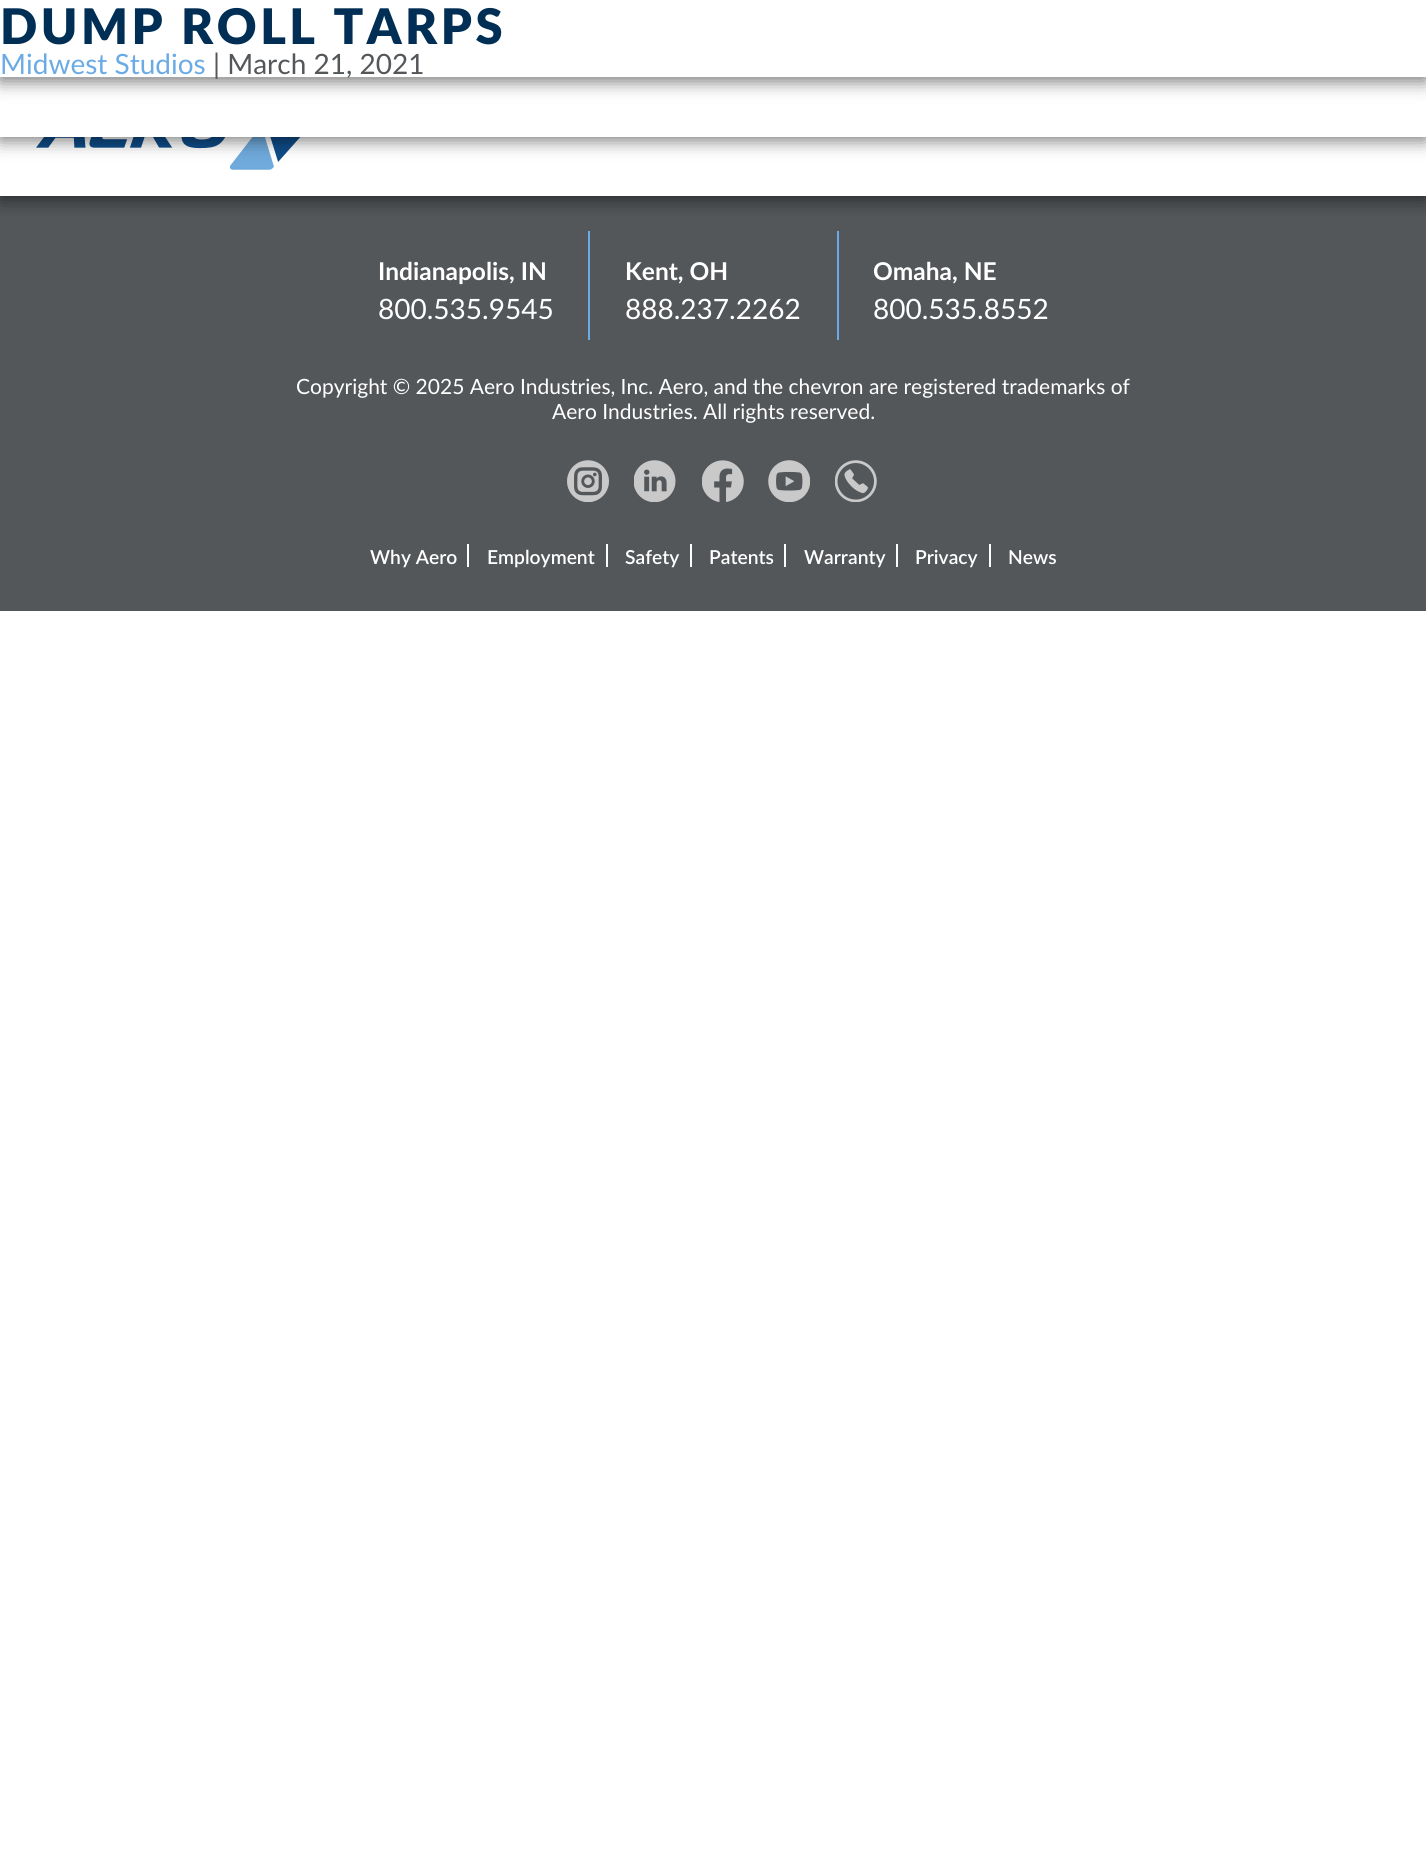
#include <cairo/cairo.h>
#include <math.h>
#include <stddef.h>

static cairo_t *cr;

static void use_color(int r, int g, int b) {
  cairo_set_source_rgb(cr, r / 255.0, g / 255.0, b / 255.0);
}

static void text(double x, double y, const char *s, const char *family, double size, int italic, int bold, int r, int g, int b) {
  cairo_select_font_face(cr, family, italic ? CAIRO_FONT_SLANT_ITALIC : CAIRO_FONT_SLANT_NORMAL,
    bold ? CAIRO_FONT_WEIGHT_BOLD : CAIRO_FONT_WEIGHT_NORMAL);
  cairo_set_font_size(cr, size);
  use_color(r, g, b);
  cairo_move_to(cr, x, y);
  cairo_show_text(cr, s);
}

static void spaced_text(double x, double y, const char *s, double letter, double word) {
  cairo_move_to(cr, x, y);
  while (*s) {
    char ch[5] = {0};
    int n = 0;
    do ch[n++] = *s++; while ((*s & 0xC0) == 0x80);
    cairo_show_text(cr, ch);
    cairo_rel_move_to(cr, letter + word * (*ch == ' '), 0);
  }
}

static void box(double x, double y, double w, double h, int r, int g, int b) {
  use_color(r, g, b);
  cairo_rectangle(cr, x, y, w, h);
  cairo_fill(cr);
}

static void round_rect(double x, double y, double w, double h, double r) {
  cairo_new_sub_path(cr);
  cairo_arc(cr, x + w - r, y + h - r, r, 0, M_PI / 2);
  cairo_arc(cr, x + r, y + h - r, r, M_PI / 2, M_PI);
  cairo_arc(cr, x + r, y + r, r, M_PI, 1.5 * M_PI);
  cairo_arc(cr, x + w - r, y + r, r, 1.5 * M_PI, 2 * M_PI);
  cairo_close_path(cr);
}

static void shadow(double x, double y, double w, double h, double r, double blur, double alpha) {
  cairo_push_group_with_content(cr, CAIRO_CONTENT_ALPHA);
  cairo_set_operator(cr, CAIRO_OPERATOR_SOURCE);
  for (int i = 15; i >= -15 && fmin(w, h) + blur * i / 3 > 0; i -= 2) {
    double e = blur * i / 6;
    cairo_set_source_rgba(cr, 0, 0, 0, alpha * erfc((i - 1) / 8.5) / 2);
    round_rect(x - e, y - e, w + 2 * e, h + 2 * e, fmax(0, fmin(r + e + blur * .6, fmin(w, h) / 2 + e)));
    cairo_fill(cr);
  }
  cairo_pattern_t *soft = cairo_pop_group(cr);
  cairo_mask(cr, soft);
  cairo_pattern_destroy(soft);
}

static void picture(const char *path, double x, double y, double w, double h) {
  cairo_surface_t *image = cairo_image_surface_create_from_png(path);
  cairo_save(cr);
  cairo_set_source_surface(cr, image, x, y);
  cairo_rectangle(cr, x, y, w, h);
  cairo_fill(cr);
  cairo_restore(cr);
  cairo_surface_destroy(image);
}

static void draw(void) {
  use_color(255, 255, 255);
  cairo_paint(cr);
  box(0, 196, 1426, 415, 84, 87, 90);
  cairo_save(cr);
  cairo_rectangle(cr, 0, 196, 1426, 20);
  cairo_clip(cr);
  use_color(0, 0, 0);
  shadow(0, 4, 1426, 196, 0, 9, 0.55);
  cairo_restore(cr);
  picture("img_01.png", 36, 137, 265, 33);
  use_color(0, 0, 0);
  shadow(0, 4, 1426, 136, 0, 9, 0.55);
  box(0, 77, 1426, 60, 255, 255, 255);
  use_color(0, 0, 0);
  shadow(0, 4, 1426, 77, 0, 9, 0.55);
  box(0, 0, 1426, 77, 255, 255, 255);
  box(588, 231, 2, 109, 107, 171, 229);
  box(837, 231, 2, 109, 107, 171, 229);
  picture("img_02.png", 567, 460, 42, 42);
  picture("img_03.png", 634, 460, 42, 42);
  picture("img_04.png", 702, 460, 42, 42);
  picture("img_05.png", 768, 460, 42, 42);
  picture("img_06.png", 835, 460, 42, 42);
  box(467, 544, 2, 23, 255, 255, 255);
  box(606, 544, 2, 23, 255, 255, 255);
  box(690, 544, 2, 23, 255, 255, 255);
  box(784, 544, 2, 23, 255, 255, 255);
  box(896, 544, 2, 23, 255, 255, 255);
  box(989, 544, 2, 23, 255, 255, 255);
  cairo_select_font_face(cr, "Lato Black", CAIRO_FONT_SLANT_NORMAL, CAIRO_FONT_WEIGHT_NORMAL);
  cairo_set_font_size(cr, 49);
  use_color(0, 46, 85);
  spaced_text(0, 44, "DUMP ROLL TARPS", 3.5, 0);
  text(0, 74, "Midwest Studios", "Lato", 28, 0, 0, 107, 171, 229);
  text(213, 74, "| March 21, 2021", "Lato", 28, 0, 0, 84, 87, 90);
  text(378, 280, "Indianapolis, IN", "Lato", 24.5, 0, 1, 255, 255, 255);
  text(378, 319, "800.535.9545", "Lato", 28, 0, 0, 255, 255, 255);
  text(625, 280, "Kent, OH", "Lato", 24.5, 0, 1, 255, 255, 255);
  text(625, 319, "888.237.2262", "Lato", 28, 0, 0, 255, 255, 255);
  text(873, 280, "Omaha, NE", "Lato", 24.5, 0, 1, 255, 255, 255);
  text(873, 319, "800.535.8552", "Lato", 28, 0, 0, 255, 255, 255);
  text(296, 394, "Copyright © 2025 Aero Industries, Inc. Aero, and the chevron are registered trademarks of", "Lato", 21, 0, 0, 255, 255, 255);
  text(552, 419, "Aero Industries. All rights reserved.", "Lato", 21, 0, 0, 255, 255, 255);
  text(370, 564, "Why Aero", "Lato SemiBold", 19.25, 0, 0, 255, 255, 255);
  text(487, 564, "Employment", "Lato SemiBold", 19.25, 0, 0, 255, 255, 255);
  text(625, 564, "Safety", "Lato SemiBold", 19.25, 0, 0, 255, 255, 255);
  text(709, 564, "Patents", "Lato SemiBold", 19.25, 0, 0, 255, 255, 255);
  text(804, 564, "Warranty", "Lato SemiBold", 19.25, 0, 0, 255, 255, 255);
  text(915, 564, "Privacy", "Lato SemiBold", 19.25, 0, 0, 255, 255, 255);
  text(1008, 564, "News", "Lato SemiBold", 19.25, 0, 0, 255, 255, 255);
}

int main(void) {
  cairo_surface_t *surface = cairo_image_surface_create(CAIRO_FORMAT_RGB24, 1426, 1850);
  cr = cairo_create(surface);
  cairo_font_options_t *options = cairo_font_options_create();
  cairo_font_options_set_hint_metrics(options, CAIRO_HINT_METRICS_OFF);
  cairo_font_options_set_hint_style(options, CAIRO_HINT_STYLE_NONE);
  cairo_set_font_options(cr, options);
  cairo_set_miter_limit(cr, 4);
  draw();
  cairo_surface_write_to_png(surface, "out.png");
  cairo_font_options_destroy(options);
  cairo_destroy(cr);
  cairo_surface_destroy(surface);
  return 0;
}
